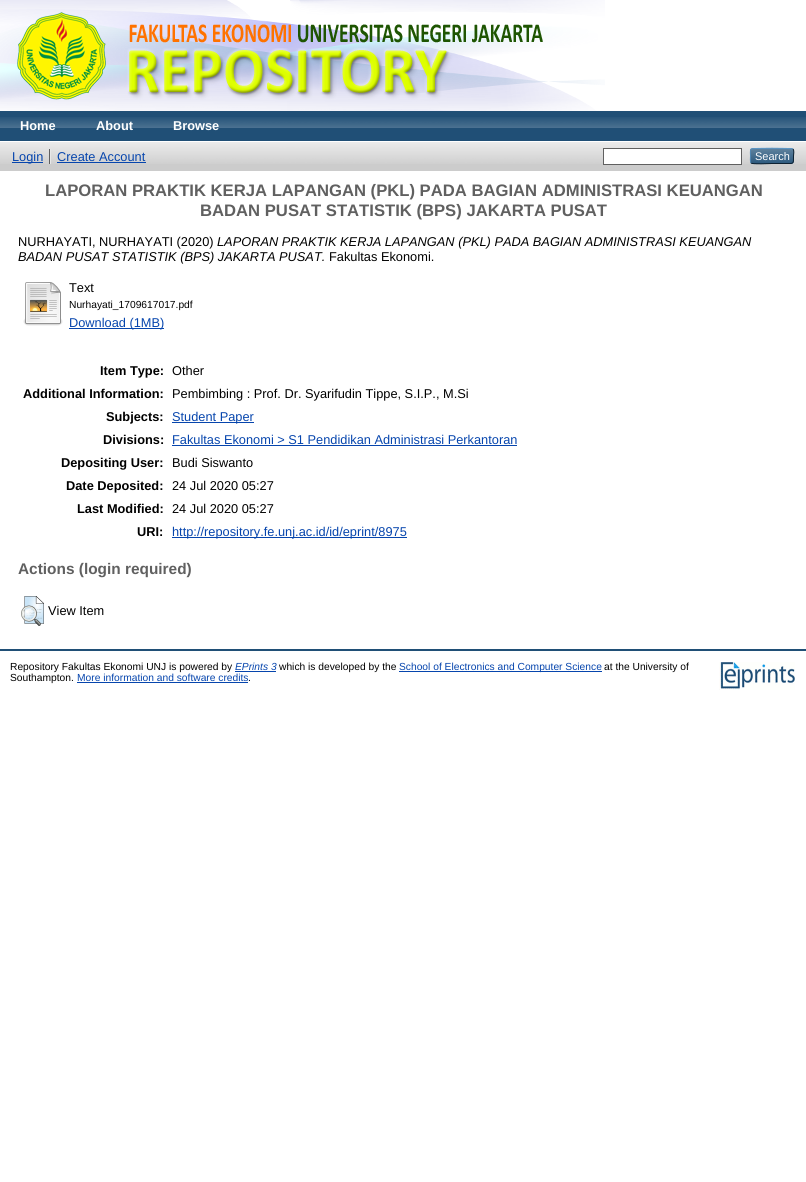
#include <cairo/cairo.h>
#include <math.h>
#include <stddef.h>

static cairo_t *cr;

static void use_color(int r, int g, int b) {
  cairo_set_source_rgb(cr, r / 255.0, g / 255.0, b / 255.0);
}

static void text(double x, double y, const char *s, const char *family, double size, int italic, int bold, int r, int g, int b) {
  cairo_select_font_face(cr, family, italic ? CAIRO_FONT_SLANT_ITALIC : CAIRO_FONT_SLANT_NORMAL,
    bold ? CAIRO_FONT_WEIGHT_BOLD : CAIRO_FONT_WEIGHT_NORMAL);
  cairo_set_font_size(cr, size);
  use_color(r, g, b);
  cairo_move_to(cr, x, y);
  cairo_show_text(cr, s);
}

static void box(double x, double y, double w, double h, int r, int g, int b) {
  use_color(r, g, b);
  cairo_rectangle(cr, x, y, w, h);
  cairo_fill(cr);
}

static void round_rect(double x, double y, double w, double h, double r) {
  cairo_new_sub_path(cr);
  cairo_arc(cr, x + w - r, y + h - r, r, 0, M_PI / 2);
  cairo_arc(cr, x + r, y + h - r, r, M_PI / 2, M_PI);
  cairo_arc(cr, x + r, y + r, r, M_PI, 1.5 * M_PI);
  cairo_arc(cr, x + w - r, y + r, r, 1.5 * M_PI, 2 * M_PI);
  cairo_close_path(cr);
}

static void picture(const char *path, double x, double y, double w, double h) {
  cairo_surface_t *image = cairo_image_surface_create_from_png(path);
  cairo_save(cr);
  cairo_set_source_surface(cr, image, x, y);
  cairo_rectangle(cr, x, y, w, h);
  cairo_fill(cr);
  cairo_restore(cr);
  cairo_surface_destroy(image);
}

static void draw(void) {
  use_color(255, 255, 255);
  cairo_paint(cr);
  picture("img_01.png", 0, 0, 605, 111);
  picture("img_02.png", 17, 12, 526, 88);
  box(0, 111, 806, 30, 32, 79, 118);
  picture("img_03.png", 0, 117, 806, 11);
  box(0, 142, 806, 29, 204, 204, 204);
  picture("img_04.png", 0, 142, 806, 22);
  box(49, 149, 1, 15, 96, 96, 96);
  box(12, 162, 31, 1, 6, 69, 173);
  box(50, 149, 1, 15, 232, 232, 232);
  box(57, 162, 89, 1, 6, 69, 173);
  use_color(255, 255, 255);
  cairo_rectangle(cr, 603.5, 148.5, 138, 16);
  cairo_fill_preserve(cr);
  use_color(96, 96, 96);
  cairo_set_line_width(cr, 1);
  cairo_stroke(cr);
  use_color(31, 79, 118);
  round_rect(750, 148, 44, 16, 3);
  cairo_fill(cr);
  picture("img_05.png", 750, 148, 44, 16);
  cairo_new_path(cr);
  cairo_move_to(cr, 751, 149);
  cairo_curve_to(cr, 752.5, 148, 791.5, 148, 793, 149);
  use_color(91, 151, 199);
  cairo_stroke(cr);
  cairo_new_path(cr);
  cairo_move_to(cr, 793, 149);
  cairo_curve_to(cr, 794.5, 151, 793.5, 154, 793.5, 156);
  cairo_curve_to(cr, 793.5, 164.5, 794, 163.5, 784.5, 163.5);
  cairo_line_to(cr, 772, 163.5);
  cairo_curve_to(cr, 769, 163.5, 753, 164.5, 751, 163);
  use_color(13, 33, 49);
  cairo_stroke(cr);
  cairo_new_path(cr);
  cairo_move_to(cr, 751, 163);
  cairo_curve_to(cr, 750, 161.5, 750.5, 157.5, 750.5, 156);
  cairo_curve_to(cr, 750.5, 154.5, 750, 150.5, 751, 149);
  use_color(82, 135, 179);
  cairo_stroke(cr);
  picture("img_06.png", 23, 282, 40, 44);
  box(69, 328, 95, 1, 6, 69, 173);
  box(172, 422, 82, 1, 6, 69, 173);
  box(172, 445, 345, 1, 6, 69, 173);
  box(172, 537, 235, 1, 6, 69, 173);
  picture("img_07.png", 21, 596, 23, 30);
  box(0, 649, 806, 2, 32, 79, 118);
  box(235, 671, 41, 1, 6, 69, 173);
  box(399, 671, 203, 1, 6, 69, 173);
  box(77, 682, 171, 1, 6, 69, 173);
  picture("img_08.png", 719, 662, 76, 28);
  text(20, 130, "Home", "Liberation Sans", 12.8, 0, 1, 255, 255, 255);
  text(96, 130, "About", "Liberation Sans", 12.8, 0, 1, 255, 255, 255);
  text(173, 130, "Browse", "Liberation Sans", 12.8, 0, 1, 255, 255, 255);
  text(12, 161, "Login", "Liberation Sans", 12.8, 0, 0, 6, 69, 173);
  text(57, 161, "Create Account", "Liberation Sans", 12.8, 0, 0, 6, 69, 173);
  text(755, 160, "Search", "Liberation Sans", 11, 0, 0, 255, 255, 255);
  text(45, 196, "LAPORAN PRAKTIK KERJA LAPANGAN (PKL) PADA BAGIAN ADMINISTRASI KEUANGAN", "Liberation Sans", 16.65, 0, 1, 96, 96, 96);
  text(200, 216, "BADAN PUSAT STATISTIK (BPS) JAKARTA PUSAT", "Liberation Sans", 16.65, 0, 1, 96, 96, 96);
  text(18, 246, "NURHAYATI, NURHAYATI (2020)", "Liberation Sans", 12.8, 0, 0, 0, 0, 0);
  text(217, 246, "LAPORAN PRAKTIK KERJA LAPANGAN (PKL) PADA BAGIAN ADMINISTRASI KEUANGAN", "Liberation Sans", 12.8, 1, 0, 0, 0, 0);
  text(18, 261, "BADAN PUSAT STATISTIK (BPS) JAKARTA PUSAT.", "Liberation Sans", 12.8, 1, 0, 0, 0, 0);
  text(329, 261, "Fakultas Ekonomi.", "Liberation Sans", 12.8, 0, 0, 0, 0, 0);
  text(69, 292, "Text", "Liberation Sans", 12.8, 0, 0, 0, 0, 0);
  text(69, 308, "Nurhayati_1709617017.pdf", "Liberation Sans", 10.25, 0, 0, 0, 0, 0);
  text(69, 327, "Download (1MB)", "Liberation Sans", 12.8, 0, 0, 6, 69, 173);
  text(100, 375, "Item Type:", "Liberation Sans", 12.8, 0, 1, 0, 0, 0);
  text(172, 375, "Other", "Liberation Sans", 12.8, 0, 0, 0, 0, 0);
  text(23, 398, "Additional Information:", "Liberation Sans", 12.8, 0, 1, 0, 0, 0);
  text(172, 398, "Pembimbing : Prof. Dr. Syarifudin Tippe, S.I.P., M.Si", "Liberation Sans", 12.8, 0, 0, 0, 0, 0);
  text(106, 421, "Subjects:", "Liberation Sans", 12.8, 0, 1, 0, 0, 0);
  text(172, 421, "Student Paper", "Liberation Sans", 12.8, 0, 0, 6, 69, 173);
  text(103, 444, "Divisions:", "Liberation Sans", 12.8, 0, 1, 0, 0, 0);
  text(172, 444, "Fakultas Ekonomi > S1 Pendidikan Administrasi Perkantoran", "Liberation Sans", 12.8, 0, 0, 6, 69, 173);
  text(61, 467, "Depositing User:", "Liberation Sans", 12.8, 0, 1, 0, 0, 0);
  text(172, 467, "Budi Siswanto", "Liberation Sans", 12.8, 0, 0, 0, 0, 0);
  text(66, 490, "Date Deposited:", "Liberation Sans", 12.8, 0, 1, 0, 0, 0);
  text(172, 490, "24 Jul 2020 05:27", "Liberation Sans", 12.8, 0, 0, 0, 0, 0);
  text(77, 513, "Last Modified:", "Liberation Sans", 12.8, 0, 1, 0, 0, 0);
  text(172, 513, "24 Jul 2020 05:27", "Liberation Sans", 12.8, 0, 0, 0, 0, 0);
  text(137, 536, "URI:", "Liberation Sans", 12.8, 0, 1, 0, 0, 0);
  text(172, 536, "http://repository.fe.unj.ac.id/id/eprint/8975", "Liberation Sans", 12.8, 0, 0, 6, 69, 173);
  text(18, 574, "Actions (login required)", "Liberation Sans", 15.4, 0, 1, 96, 96, 96);
  text(48, 615, "View Item", "Liberation Sans", 12.8, 0, 0, 0, 0, 0);
  text(10, 670, "Repository Fakultas Ekonomi UNJ is powered by", "Liberation Sans", 10.25, 0, 0, 0, 0, 0);
  text(235, 670, "EPrints 3", "Liberation Sans", 10.25, 1, 0, 6, 69, 173);
  text(279, 670, "which is developed by the", "Liberation Sans", 10.25, 0, 0, 0, 0, 0);
  text(399, 670, "School of Electronics and Computer Science", "Liberation Sans", 10.25, 0, 0, 6, 69, 173);
  text(604, 670, "at the University of", "Liberation Sans", 10.25, 0, 0, 0, 0, 0);
  text(10, 681, "Southampton.", "Liberation Sans", 10.25, 0, 0, 0, 0, 0);
  text(77, 681, "More information and software credits", "Liberation Sans", 10.25, 0, 0, 6, 69, 173);
  text(248, 681, ".", "Liberation Sans", 10.25, 0, 0, 0, 0, 0);
}

int main(void) {
  cairo_surface_t *surface = cairo_image_surface_create(CAIRO_FORMAT_RGB24, 806, 1182);
  cr = cairo_create(surface);
  cairo_font_options_t *options = cairo_font_options_create();
  cairo_font_options_set_hint_metrics(options, CAIRO_HINT_METRICS_OFF);
  cairo_font_options_set_hint_style(options, CAIRO_HINT_STYLE_NONE);
  cairo_set_font_options(cr, options);
  cairo_set_miter_limit(cr, 4);
  draw();
  cairo_surface_write_to_png(surface, "out.png");
  cairo_font_options_destroy(options);
  cairo_destroy(cr);
  cairo_surface_destroy(surface);
  return 0;
}
